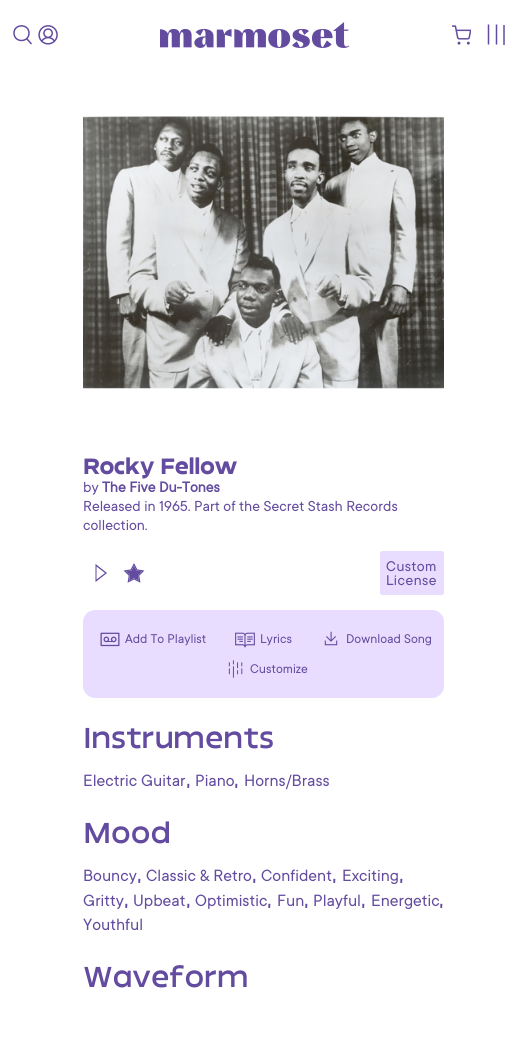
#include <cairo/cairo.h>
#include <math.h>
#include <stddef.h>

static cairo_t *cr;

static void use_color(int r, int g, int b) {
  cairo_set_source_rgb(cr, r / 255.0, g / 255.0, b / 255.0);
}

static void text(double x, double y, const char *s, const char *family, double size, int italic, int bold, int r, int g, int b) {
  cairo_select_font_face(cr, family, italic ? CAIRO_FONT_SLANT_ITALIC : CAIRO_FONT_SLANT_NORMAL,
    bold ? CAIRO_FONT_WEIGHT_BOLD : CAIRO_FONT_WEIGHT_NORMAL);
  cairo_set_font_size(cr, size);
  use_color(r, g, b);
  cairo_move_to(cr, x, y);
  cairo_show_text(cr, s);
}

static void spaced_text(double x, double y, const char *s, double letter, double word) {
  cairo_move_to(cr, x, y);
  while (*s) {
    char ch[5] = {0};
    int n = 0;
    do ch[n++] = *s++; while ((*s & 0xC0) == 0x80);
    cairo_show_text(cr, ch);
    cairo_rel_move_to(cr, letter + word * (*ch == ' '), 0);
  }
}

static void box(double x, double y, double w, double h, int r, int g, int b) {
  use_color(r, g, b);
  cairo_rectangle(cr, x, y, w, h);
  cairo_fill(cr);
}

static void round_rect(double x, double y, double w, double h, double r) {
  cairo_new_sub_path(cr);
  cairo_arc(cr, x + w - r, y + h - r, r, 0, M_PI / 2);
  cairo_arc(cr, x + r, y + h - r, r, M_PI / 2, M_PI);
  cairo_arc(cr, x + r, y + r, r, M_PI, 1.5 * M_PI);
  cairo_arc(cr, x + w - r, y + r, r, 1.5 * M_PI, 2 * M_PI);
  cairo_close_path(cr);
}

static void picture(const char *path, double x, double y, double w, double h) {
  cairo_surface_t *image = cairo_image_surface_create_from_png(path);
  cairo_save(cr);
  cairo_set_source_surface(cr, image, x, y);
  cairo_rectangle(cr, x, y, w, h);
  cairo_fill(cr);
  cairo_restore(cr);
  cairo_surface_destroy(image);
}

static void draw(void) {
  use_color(255, 255, 255);
  cairo_paint(cr);
  cairo_new_path(cr);
  cairo_move_to(cr, 26.5, 38.5);
  cairo_line_to(cr, 31.5, 44);
  cairo_move_to(cr, 29, 33);
  cairo_curve_to(cr, 29, 43, 14, 43, 14, 33);
  cairo_curve_to(cr, 14, 23.5, 29, 23.5, 29, 33);
  cairo_close_path(cr);
  use_color(99, 75, 159);
  cairo_set_line_width(cr, 1.5);
  cairo_stroke(cr);
  picture("img_01.png", 38, 25, 20, 20);
  picture("img_02.png", 160, 22, 190, 26);
  picture("img_03.png", 452, 25, 19, 20);
  cairo_new_path(cr);
  cairo_move_to(cr, 488.5, 24.5);
  cairo_line_to(cr, 488.5, 44.5);
  cairo_move_to(cr, 496.5, 24.5);
  cairo_line_to(cr, 496.5, 44.5);
  cairo_stroke(cr);
  box(503, 25, 2, 20, 138, 120, 183);
  picture("img_04.png", 83, 116, 361, 273);
  use_color(99, 75, 159);
  cairo_new_path(cr);
  cairo_move_to(cr, 96.5, 566.5);
  cairo_line_to(cr, 105, 573);
  cairo_line_to(cr, 96.5, 579.5);
  cairo_close_path(cr);
  cairo_move_to(cr, 95.5, 582);
  cairo_line_to(cr, 107, 573);
  cairo_line_to(cr, 95.5, 564);
  cairo_close_path(cr);
  cairo_fill(cr);
  picture("img_05.png", 123, 563, 22, 20);
  use_color(233, 221, 255);
  round_rect(380, 551, 64, 44, 2);
  cairo_fill(cr);
  round_rect(83, 610, 361, 88, 12);
  cairo_fill(cr);
  picture("img_06.png", 100, 632, 20, 15);
  picture("img_07.png", 235, 632, 20, 16);
  picture("img_08.png", 324, 631, 14, 15);
  picture("img_09.png", 228, 660, 15, 18);
  cairo_select_font_face(cr, "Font", CAIRO_FONT_SLANT_NORMAL, CAIRO_FONT_WEIGHT_BOLD);
  cairo_set_font_size(cr, 20);
  use_color(99, 75, 159);
  spaced_text(83, 474, "Rocky Fellow", -0.4, 0);
  text(83, 492, "by", "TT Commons", 16, 0, 0, 99, 75, 159);
  text(102, 492, "The Five Du-Tones", "TT Commons", 16, 0, 1, 99, 75, 159);
  text(83, 511, "Released in 1965. Part of the Secret Stash Records", "TT Commons", 16, 0, 0, 99, 75, 159);
  text(83, 530, "collection.", "TT Commons", 16, 0, 0, 99, 75, 159);
  cairo_select_font_face(cr, "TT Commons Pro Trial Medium", CAIRO_FONT_SLANT_NORMAL, CAIRO_FONT_WEIGHT_NORMAL);
  cairo_set_font_size(cr, 14);
  spaced_text(386, 571, "Custom", 0.5, 0);
  spaced_text(386, 585, "License", 0.5, 0);
  text(125, 643, "Add To Playlist", "TT Commons", 14, 0, 0, 99, 75, 159);
  text(260, 643, "Lyrics", "TT Commons", 14, 0, 0, 99, 75, 159);
  text(346, 643, "Download Song", "TT Commons", 14, 0, 0, 99, 75, 159);
  text(250, 673, "Customize", "TT Commons", 14, 0, 0, 99, 75, 159);
  cairo_select_font_face(cr, "Font", CAIRO_FONT_SLANT_NORMAL, CAIRO_FONT_WEIGHT_NORMAL);
  cairo_set_font_size(cr, 26);
  spaced_text(83, 748, "Instruments", -0.5, 0);
  text(83, 786, "Electric Guitar", "TT Commons", 18, 0, 0, 99, 75, 159);
  text(186, 786, ",", "Font", 16, 0, 0, 99, 75, 159);
  text(195, 786, "Piano", "TT Commons", 18, 0, 0, 99, 75, 159);
  text(234, 786, ",", "Font", 16, 0, 0, 99, 75, 159);
  text(244, 786, "Horns/Brass", "TT Commons", 18, 0, 0, 99, 75, 159);
  cairo_select_font_face(cr, "Font", CAIRO_FONT_SLANT_NORMAL, CAIRO_FONT_WEIGHT_NORMAL);
  cairo_set_font_size(cr, 26);
  spaced_text(83, 843, "Mood", -0.5, 0);
  text(83, 881, "Bouncy", "TT Commons", 18, 0, 0, 99, 75, 159);
  text(137, 881, ",", "Font", 16, 0, 0, 99, 75, 159);
  text(146, 881, "Classic & Retro", "TT Commons", 18, 0, 0, 99, 75, 159);
  text(252, 881, ",", "Font", 16, 0, 0, 99, 75, 159);
  text(261, 881, "Confident", "TT Commons", 18, 0, 0, 99, 75, 159);
  text(332, 881, ",", "Font", 16, 0, 0, 99, 75, 159);
  text(342, 881, "Exciting", "TT Commons", 18, 0, 0, 99, 75, 159);
  text(399, 881, ",", "Font", 16, 0, 0, 99, 75, 159);
  text(83, 906, "Gritty", "TT Commons", 18, 0, 0, 99, 75, 159);
  text(124, 906, ",", "Font", 16, 0, 0, 99, 75, 159);
  text(133, 906, "Upbeat", "TT Commons", 18, 0, 0, 99, 75, 159);
  text(186, 906, ",", "Font", 16, 0, 0, 99, 75, 159);
  text(195, 906, "Optimistic", "TT Commons", 18, 0, 0, 99, 75, 159);
  text(267, 906, ",", "Font", 16, 0, 0, 99, 75, 159);
  text(277, 906, "Fun", "TT Commons", 18, 0, 0, 99, 75, 159);
  text(304, 906, ",", "Font", 16, 0, 0, 99, 75, 159);
  text(313, 906, "Playful", "TT Commons", 18, 0, 0, 99, 75, 159);
  text(361, 906, ",", "Font", 16, 0, 0, 99, 75, 159);
  text(371, 906, "Energetic", "TT Commons", 18, 0, 0, 99, 75, 159);
  text(439, 906, ",", "Font", 16, 0, 0, 99, 75, 159);
  text(83, 930, "Youthful", "TT Commons", 18, 0, 0, 99, 75, 159);
  cairo_select_font_face(cr, "Font", CAIRO_FONT_SLANT_NORMAL, CAIRO_FONT_WEIGHT_NORMAL);
  cairo_set_font_size(cr, 26);
  spaced_text(83, 987, "Waveform", -0.5, 0);
}

int main(void) {
  cairo_surface_t *surface = cairo_image_surface_create(CAIRO_FORMAT_RGB24, 527, 1045);
  cr = cairo_create(surface);
  cairo_font_options_t *options = cairo_font_options_create();
  cairo_font_options_set_hint_metrics(options, CAIRO_HINT_METRICS_OFF);
  cairo_font_options_set_hint_style(options, CAIRO_HINT_STYLE_NONE);
  cairo_set_font_options(cr, options);
  cairo_set_miter_limit(cr, 4);
  draw();
  cairo_surface_write_to_png(surface, "out.png");
  cairo_font_options_destroy(options);
  cairo_destroy(cr);
  cairo_surface_destroy(surface);
  return 0;
}
